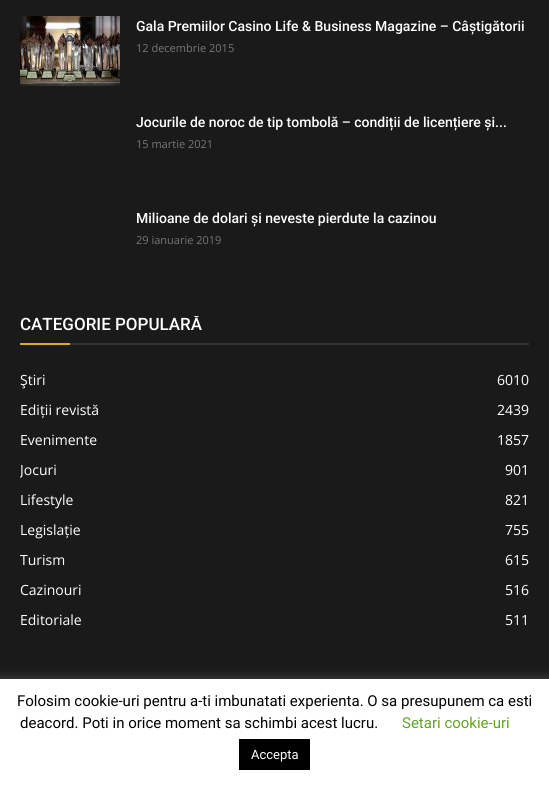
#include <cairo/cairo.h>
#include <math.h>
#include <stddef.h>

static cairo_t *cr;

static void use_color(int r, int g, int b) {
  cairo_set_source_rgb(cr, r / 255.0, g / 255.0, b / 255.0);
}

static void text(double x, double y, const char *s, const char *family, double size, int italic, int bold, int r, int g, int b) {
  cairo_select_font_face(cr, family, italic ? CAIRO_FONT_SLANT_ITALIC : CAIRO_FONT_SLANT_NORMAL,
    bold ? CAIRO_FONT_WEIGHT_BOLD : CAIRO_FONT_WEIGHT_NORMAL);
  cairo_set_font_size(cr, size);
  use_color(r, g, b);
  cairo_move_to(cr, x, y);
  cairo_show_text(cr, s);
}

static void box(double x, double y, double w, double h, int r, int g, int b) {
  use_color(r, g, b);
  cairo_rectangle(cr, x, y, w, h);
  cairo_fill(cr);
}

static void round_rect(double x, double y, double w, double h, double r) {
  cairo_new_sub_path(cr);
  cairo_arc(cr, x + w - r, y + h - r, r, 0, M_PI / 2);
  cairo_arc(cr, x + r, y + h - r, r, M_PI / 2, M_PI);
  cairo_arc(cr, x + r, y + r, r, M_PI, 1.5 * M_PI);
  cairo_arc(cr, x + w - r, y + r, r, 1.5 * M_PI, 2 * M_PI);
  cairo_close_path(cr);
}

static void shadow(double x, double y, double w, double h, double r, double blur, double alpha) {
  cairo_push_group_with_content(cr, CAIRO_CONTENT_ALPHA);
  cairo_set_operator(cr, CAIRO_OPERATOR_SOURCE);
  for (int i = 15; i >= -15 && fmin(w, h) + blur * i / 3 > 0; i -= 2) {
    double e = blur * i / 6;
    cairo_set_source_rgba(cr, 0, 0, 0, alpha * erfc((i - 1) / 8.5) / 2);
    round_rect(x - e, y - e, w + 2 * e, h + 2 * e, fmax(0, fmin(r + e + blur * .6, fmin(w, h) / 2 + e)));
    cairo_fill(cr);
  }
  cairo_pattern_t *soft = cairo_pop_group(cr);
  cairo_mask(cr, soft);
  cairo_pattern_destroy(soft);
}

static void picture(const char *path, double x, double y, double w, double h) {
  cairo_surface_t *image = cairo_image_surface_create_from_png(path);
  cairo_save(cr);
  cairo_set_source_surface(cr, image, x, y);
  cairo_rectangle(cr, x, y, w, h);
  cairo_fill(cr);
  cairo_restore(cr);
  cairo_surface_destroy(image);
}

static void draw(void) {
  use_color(26, 26, 26);
  cairo_paint(cr);
  picture("img_01.png", 20, 16, 100, 70);
  box(20, 343, 50, 2, 218, 172, 34);
  box(70, 343, 459, 2, 51, 51, 51);
  use_color(172, 171, 171);
  shadow(0, 678, 549, 108, 0, 5, 0.3);
  box(0, 679, 549, 108, 255, 255, 255);
  box(239, 739, 71, 31, 0, 0, 0);
  text(136, 31, "Gala Premiilor Casino Life & Business Magazine – Câștigătorii", "Roboto Medium", 14, 0, 0, 255, 255, 255);
  text(136, 52, "12 decembrie 2015", "Open Sans", 11, 0, 0, 118, 118, 118);
  text(136, 127, "Jocurile de noroc de tip tombolă – condiții de licențiere și...", "Roboto Medium", 14, 0, 0, 255, 255, 255);
  text(136, 148, "15 martie 2021", "Open Sans", 11, 0, 0, 118, 118, 118);
  text(136, 223, "Milioane de dolari și neveste pierdute la cazinou", "Roboto Medium", 14, 0, 0, 255, 255, 255);
  text(136, 244, "29 ianuarie 2019", "Open Sans", 11, 0, 0, 118, 118, 118);
  cairo_save(cr);
  cairo_rectangle(cr, 20, 316, 509, 319);
  cairo_clip(cr);
  text(20, 330, "CATEGORIE POPULARĂ", "Roboto Medium", 17, 0, 0, 255, 255, 255);
  cairo_restore(cr);
  text(20, 385, "Ştiri", "Open Sans", 14, 0, 0, 255, 255, 255);
  text(497, 385, "6010", "Open Sans", 14, 0, 0, 255, 255, 255);
  text(20, 415, "Ediții revistă", "Open Sans", 14, 0, 0, 255, 255, 255);
  text(497, 415, "2439", "Open Sans", 14, 0, 0, 255, 255, 255);
  text(20, 445, "Evenimente", "Open Sans", 14, 0, 0, 255, 255, 255);
  text(497, 445, "1857", "Open Sans", 14, 0, 0, 255, 255, 255);
  cairo_save(cr);
  cairo_rectangle(cr, 20, 316, 509, 319);
  cairo_clip(cr);
  text(20, 475, "Jocuri", "Open Sans", 14, 0, 0, 255, 255, 255);
  cairo_restore(cr);
  text(505, 475, "901", "Open Sans", 14, 0, 0, 255, 255, 255);
  text(20, 505, "Lifestyle", "Open Sans", 14, 0, 0, 255, 255, 255);
  text(505, 505, "821", "Open Sans", 14, 0, 0, 255, 255, 255);
  text(20, 535, "Legislație", "Open Sans", 14, 0, 0, 255, 255, 255);
  text(505, 535, "755", "Open Sans", 14, 0, 0, 255, 255, 255);
  text(20, 565, "Turism", "Open Sans", 14, 0, 0, 255, 255, 255);
  text(505, 565, "615", "Open Sans", 14, 0, 0, 255, 255, 255);
  text(20, 595, "Cazinouri", "Open Sans", 14, 0, 0, 255, 255, 255);
  text(505, 595, "516", "Open Sans", 14, 0, 0, 255, 255, 255);
  text(20, 625, "Editoriale", "Open Sans", 14, 0, 0, 255, 255, 255);
  text(505, 625, "511", "Open Sans", 14, 0, 0, 255, 255, 255);
  text(17, 706, "Folosim cookie-uri pentru a-ti imbunatati experienta. O sa presupunem ca esti", "Roboto", 15, 0, 0, 0, 0, 0);
  text(20, 728, "deacord. Poti in orice moment sa schimbi acest lucru.", "Roboto", 15, 0, 0, 0, 0, 0);
  text(402, 728, "Setari cookie-uri", "Roboto", 15, 0, 0, 98, 163, 41);
  text(251, 759, "Accepta", "Roboto", 13, 0, 0, 255, 255, 255);
}

int main(void) {
  cairo_surface_t *surface = cairo_image_surface_create(CAIRO_FORMAT_RGB24, 549, 787);
  cr = cairo_create(surface);
  cairo_font_options_t *options = cairo_font_options_create();
  cairo_font_options_set_hint_metrics(options, CAIRO_HINT_METRICS_OFF);
  cairo_font_options_set_hint_style(options, CAIRO_HINT_STYLE_NONE);
  cairo_set_font_options(cr, options);
  cairo_set_miter_limit(cr, 4);
  draw();
  cairo_surface_write_to_png(surface, "out.png");
  cairo_font_options_destroy(options);
  cairo_destroy(cr);
  cairo_surface_destroy(surface);
  return 0;
}
